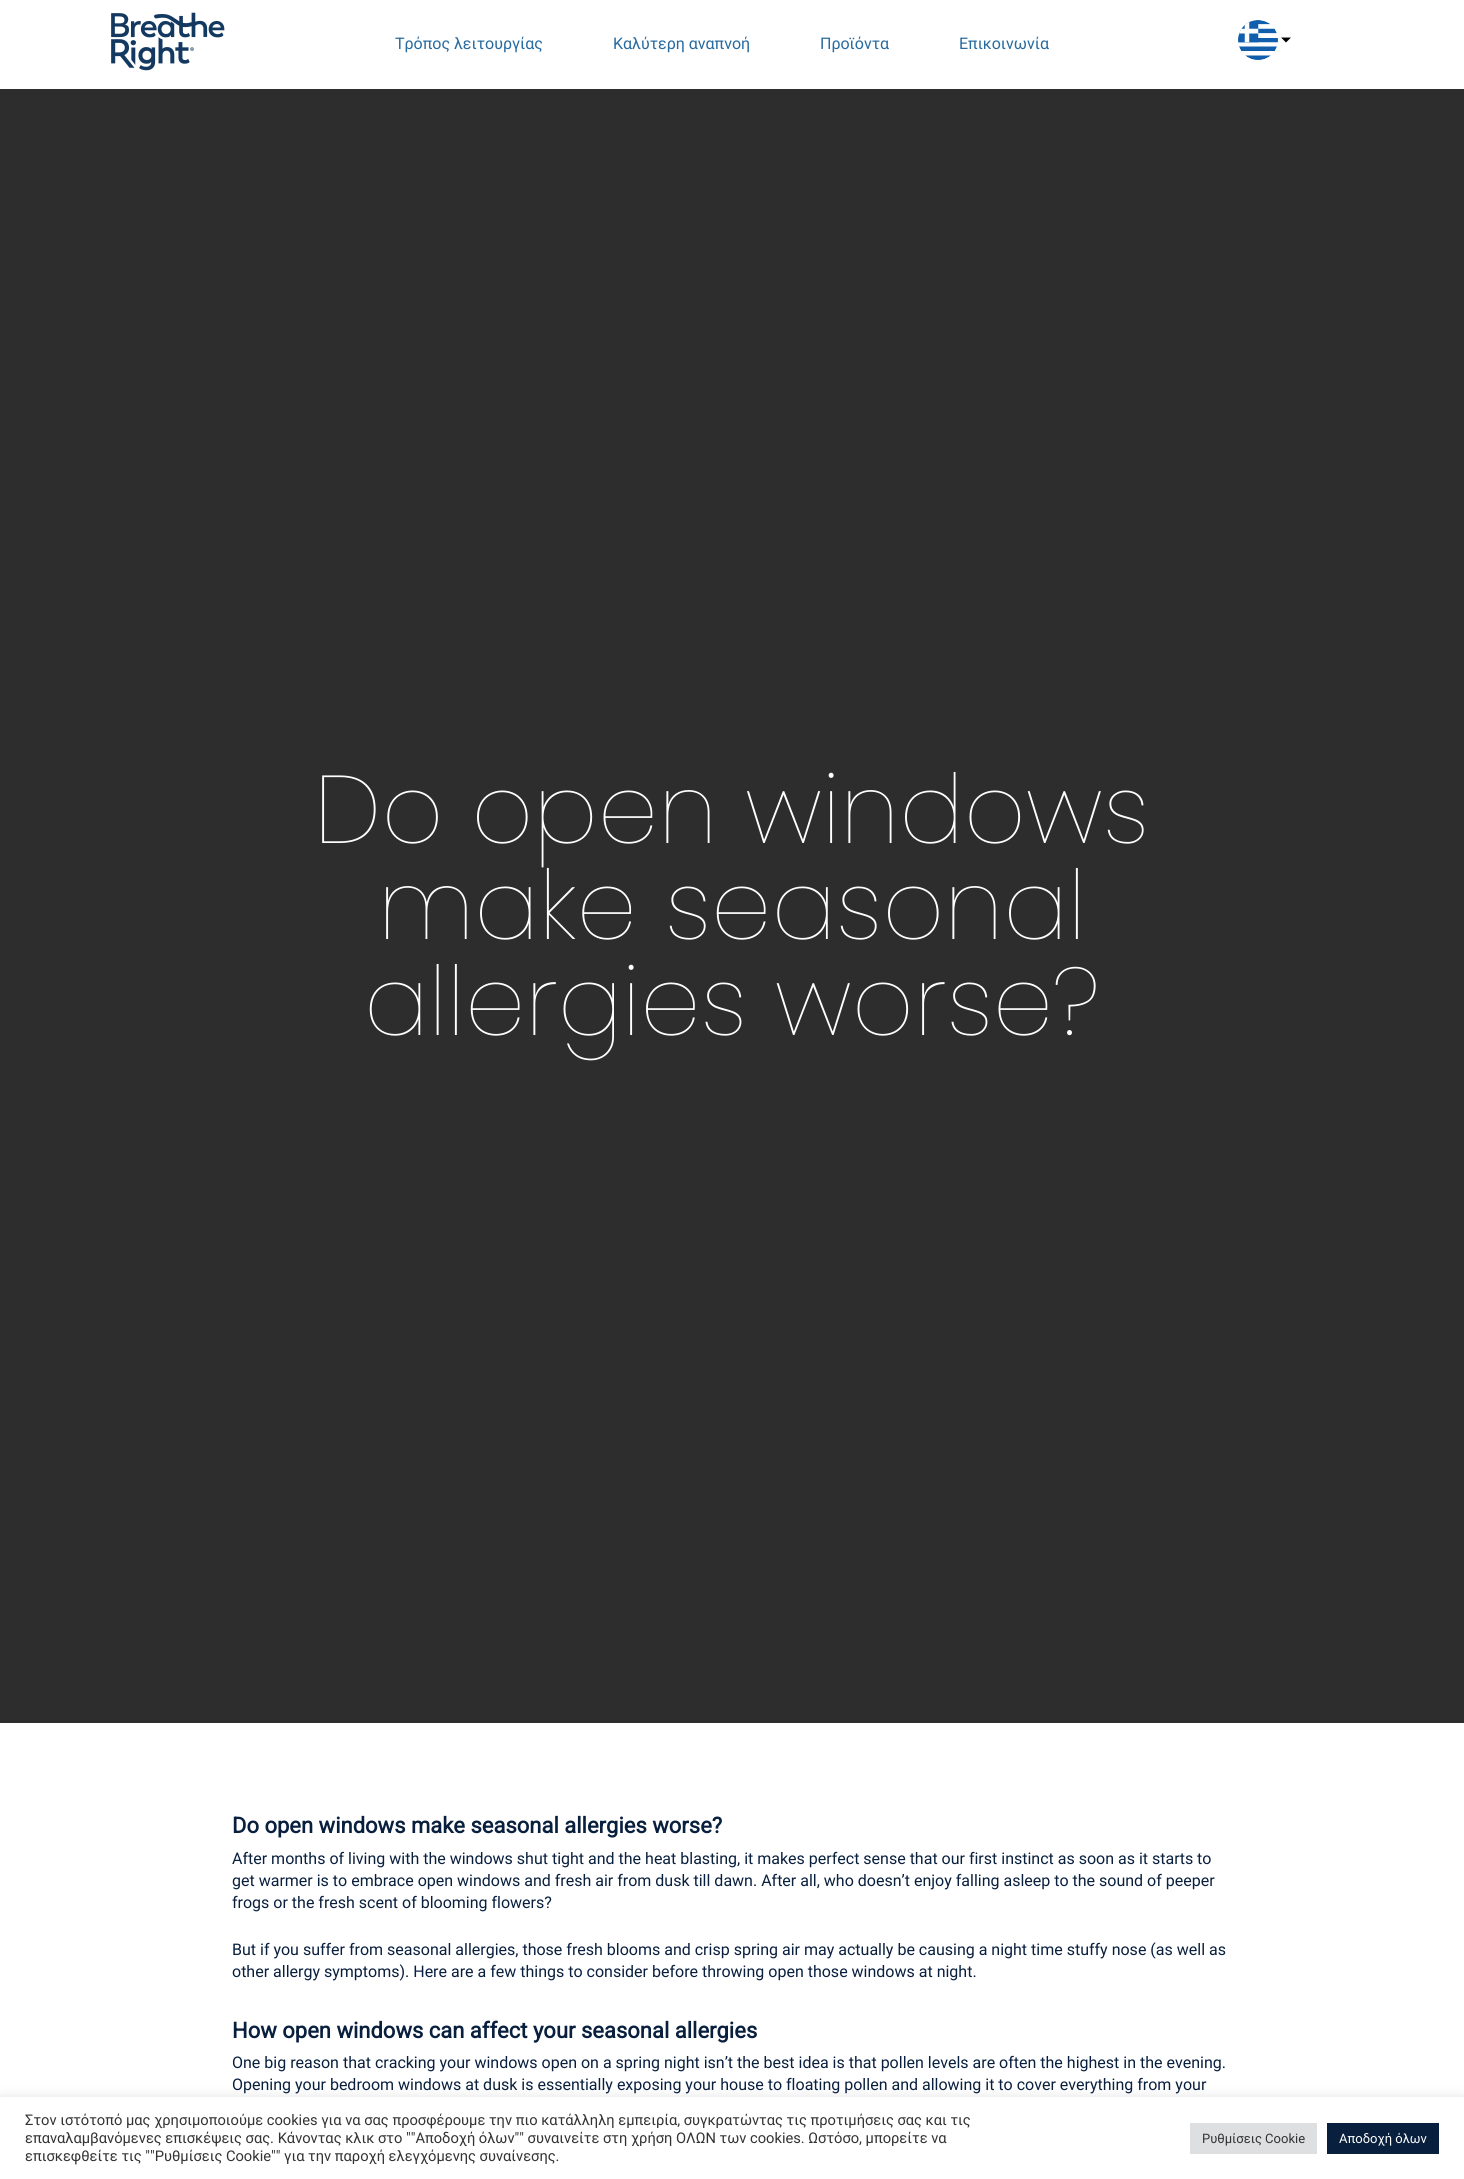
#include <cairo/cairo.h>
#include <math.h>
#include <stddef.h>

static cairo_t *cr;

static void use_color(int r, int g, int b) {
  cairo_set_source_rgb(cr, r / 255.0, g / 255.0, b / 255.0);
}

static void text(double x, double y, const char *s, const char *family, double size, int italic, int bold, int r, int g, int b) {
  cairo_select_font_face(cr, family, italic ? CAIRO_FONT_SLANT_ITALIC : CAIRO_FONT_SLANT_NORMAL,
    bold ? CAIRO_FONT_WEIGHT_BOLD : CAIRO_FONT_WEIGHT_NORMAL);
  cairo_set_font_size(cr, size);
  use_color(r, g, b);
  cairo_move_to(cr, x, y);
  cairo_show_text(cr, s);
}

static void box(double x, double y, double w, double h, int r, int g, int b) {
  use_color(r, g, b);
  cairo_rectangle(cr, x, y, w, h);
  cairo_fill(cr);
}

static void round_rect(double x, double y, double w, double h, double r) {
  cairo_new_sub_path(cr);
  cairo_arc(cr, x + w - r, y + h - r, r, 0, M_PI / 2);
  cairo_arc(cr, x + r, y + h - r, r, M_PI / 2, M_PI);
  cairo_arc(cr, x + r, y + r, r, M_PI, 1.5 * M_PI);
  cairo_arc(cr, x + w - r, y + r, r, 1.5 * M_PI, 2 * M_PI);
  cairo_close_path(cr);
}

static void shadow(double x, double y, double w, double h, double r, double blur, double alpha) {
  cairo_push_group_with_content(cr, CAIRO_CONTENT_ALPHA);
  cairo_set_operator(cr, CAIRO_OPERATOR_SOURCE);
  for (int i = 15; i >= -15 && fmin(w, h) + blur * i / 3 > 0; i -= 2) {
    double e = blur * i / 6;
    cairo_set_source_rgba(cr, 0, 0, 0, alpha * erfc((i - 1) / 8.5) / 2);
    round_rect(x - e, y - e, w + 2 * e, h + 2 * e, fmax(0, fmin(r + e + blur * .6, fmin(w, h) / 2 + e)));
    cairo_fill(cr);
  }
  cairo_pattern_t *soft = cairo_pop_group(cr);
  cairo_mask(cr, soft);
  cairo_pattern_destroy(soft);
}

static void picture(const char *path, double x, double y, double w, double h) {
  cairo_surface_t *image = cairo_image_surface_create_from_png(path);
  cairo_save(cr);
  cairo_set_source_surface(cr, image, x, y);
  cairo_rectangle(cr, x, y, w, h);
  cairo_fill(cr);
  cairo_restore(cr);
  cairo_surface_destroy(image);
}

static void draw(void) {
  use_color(255, 255, 255);
  cairo_paint(cr);
  picture("img_01.png", 111, 12, 114, 59);
  picture("img_02.png", 1238, 20, 40, 40);
  use_color(0, 0, 0);
  cairo_new_path(cr);
  cairo_move_to(cr, 1281, 37.5);
  cairo_line_to(cr, 1291, 37.5);
  cairo_line_to(cr, 1286, 42.5);
  cairo_close_path(cr);
  cairo_fill(cr);
  box(0, 89, 1464, 1634, 45, 45, 45);
  use_color(172, 171, 171);
  shadow(0, 2096, 1464, 82, 0, 5, 0.3);
  box(0, 2097, 1464, 82, 255, 255, 255);
  box(1190, 2123, 127, 31, 222, 223, 224);
  box(1327, 2123, 112, 31, 9, 31, 62);
  text(395, 49, "Τρόπος λειτουργίας", "Roboto", 16, 0, 0, 38, 106, 160);
  text(613, 49, "Καλύτερη αναπνοή", "Roboto", 16, 0, 0, 38, 106, 160);
  text(820, 49, "Προϊόντα", "Roboto", 16, 0, 0, 38, 106, 160);
  text(959, 49, "Επικοινωνία", "Roboto", 16, 0, 0, 38, 106, 160);
  text(314, 843, "Do open windows", "Poppins ExtraLight", 96, 0, 0, 255, 255, 255);
  text(378, 939, "make seasonal", "Poppins ExtraLight", 96, 0, 0, 255, 255, 255);
  text(364, 1035, "allergies worse?", "Poppins ExtraLight", 96, 0, 0, 255, 255, 255);
  text(232, 1833, "Do open windows make seasonal allergies worse?", "Roboto", 22, 0, 1, 9, 31, 62);
  text(232, 1864, "After months of living with the windows shut tight and the heat blasting, it makes perfect sense that our first instinct as soon as it starts to", "Roboto", 16, 0, 0, 9, 31, 62);
  text(232, 1886, "get warmer is to embrace open windows and fresh air from dusk till dawn. After all, who doesn’t enjoy falling asleep to the sound of peeper", "Roboto", 16, 0, 0, 9, 31, 62);
  text(232, 1908, "frogs or the fresh scent of blooming flowers?", "Roboto", 16, 0, 0, 9, 31, 62);
  text(232, 1955, "But if you suffer from seasonal allergies, those fresh blooms and crisp spring air may actually be causing a night time stuffy nose (as well as", "Roboto", 16, 0, 0, 9, 31, 62);
  text(232, 1977, "other allergy symptoms). Here are a few things to consider before throwing open those windows at night.", "Roboto", 16, 0, 0, 9, 31, 62);
  text(232, 2038, "How open windows can affect your seasonal allergies", "Roboto", 22, 0, 1, 9, 31, 62);
  text(232, 2068, "One big reason that cracking your windows open on a spring night isn’t the best idea is that pollen levels are often the highest in the evening.", "Roboto", 16, 0, 0, 9, 31, 62);
  text(232, 2090, "Opening your bedroom windows at dusk is essentially exposing your house to floating pollen and allowing it to cover everything from your", "Roboto", 16, 0, 0, 9, 31, 62);
  text(25, 2125, "Στον ιστότοπό μας χρησιμοποιούμε cookies για να σας προσφέρουμε την πιο κατάλληλη εμπειρία, συγκρατώντας τις προτιμήσεις σας και τις", "Roboto", 14.67, 0, 0, 51, 51, 51);
  text(25, 2143, "επαναλαμβανόμενες επισκέψεις σας. Κάνοντας κλικ στο \"\"Αποδοχή όλων\"\" συναινείτε στη χρήση ΟΛΩΝ των cookies. Ωστόσο, μπορείτε να", "Roboto", 14.67, 0, 0, 51, 51, 51);
  text(25, 2161, "επισκεφθείτε τις \"\"Ρυθμίσεις Cookie\"\" για την παροχή ελεγχόμενης συναίνεσης.", "Roboto", 14.67, 0, 0, 51, 51, 51);
  text(1202, 2143, "Ρυθμίσεις Cookie", "Roboto", 13, 0, 0, 51, 51, 51);
  text(1339, 2143, "Αποδοχή όλων", "Roboto", 13, 0, 0, 255, 255, 255);
}

int main(void) {
  cairo_surface_t *surface = cairo_image_surface_create(CAIRO_FORMAT_RGB24, 1464, 2179);
  cr = cairo_create(surface);
  cairo_font_options_t *options = cairo_font_options_create();
  cairo_font_options_set_hint_metrics(options, CAIRO_HINT_METRICS_OFF);
  cairo_font_options_set_hint_style(options, CAIRO_HINT_STYLE_NONE);
  cairo_set_font_options(cr, options);
  cairo_set_miter_limit(cr, 4);
  draw();
  cairo_surface_write_to_png(surface, "out.png");
  cairo_font_options_destroy(options);
  cairo_destroy(cr);
  cairo_surface_destroy(surface);
  return 0;
}
